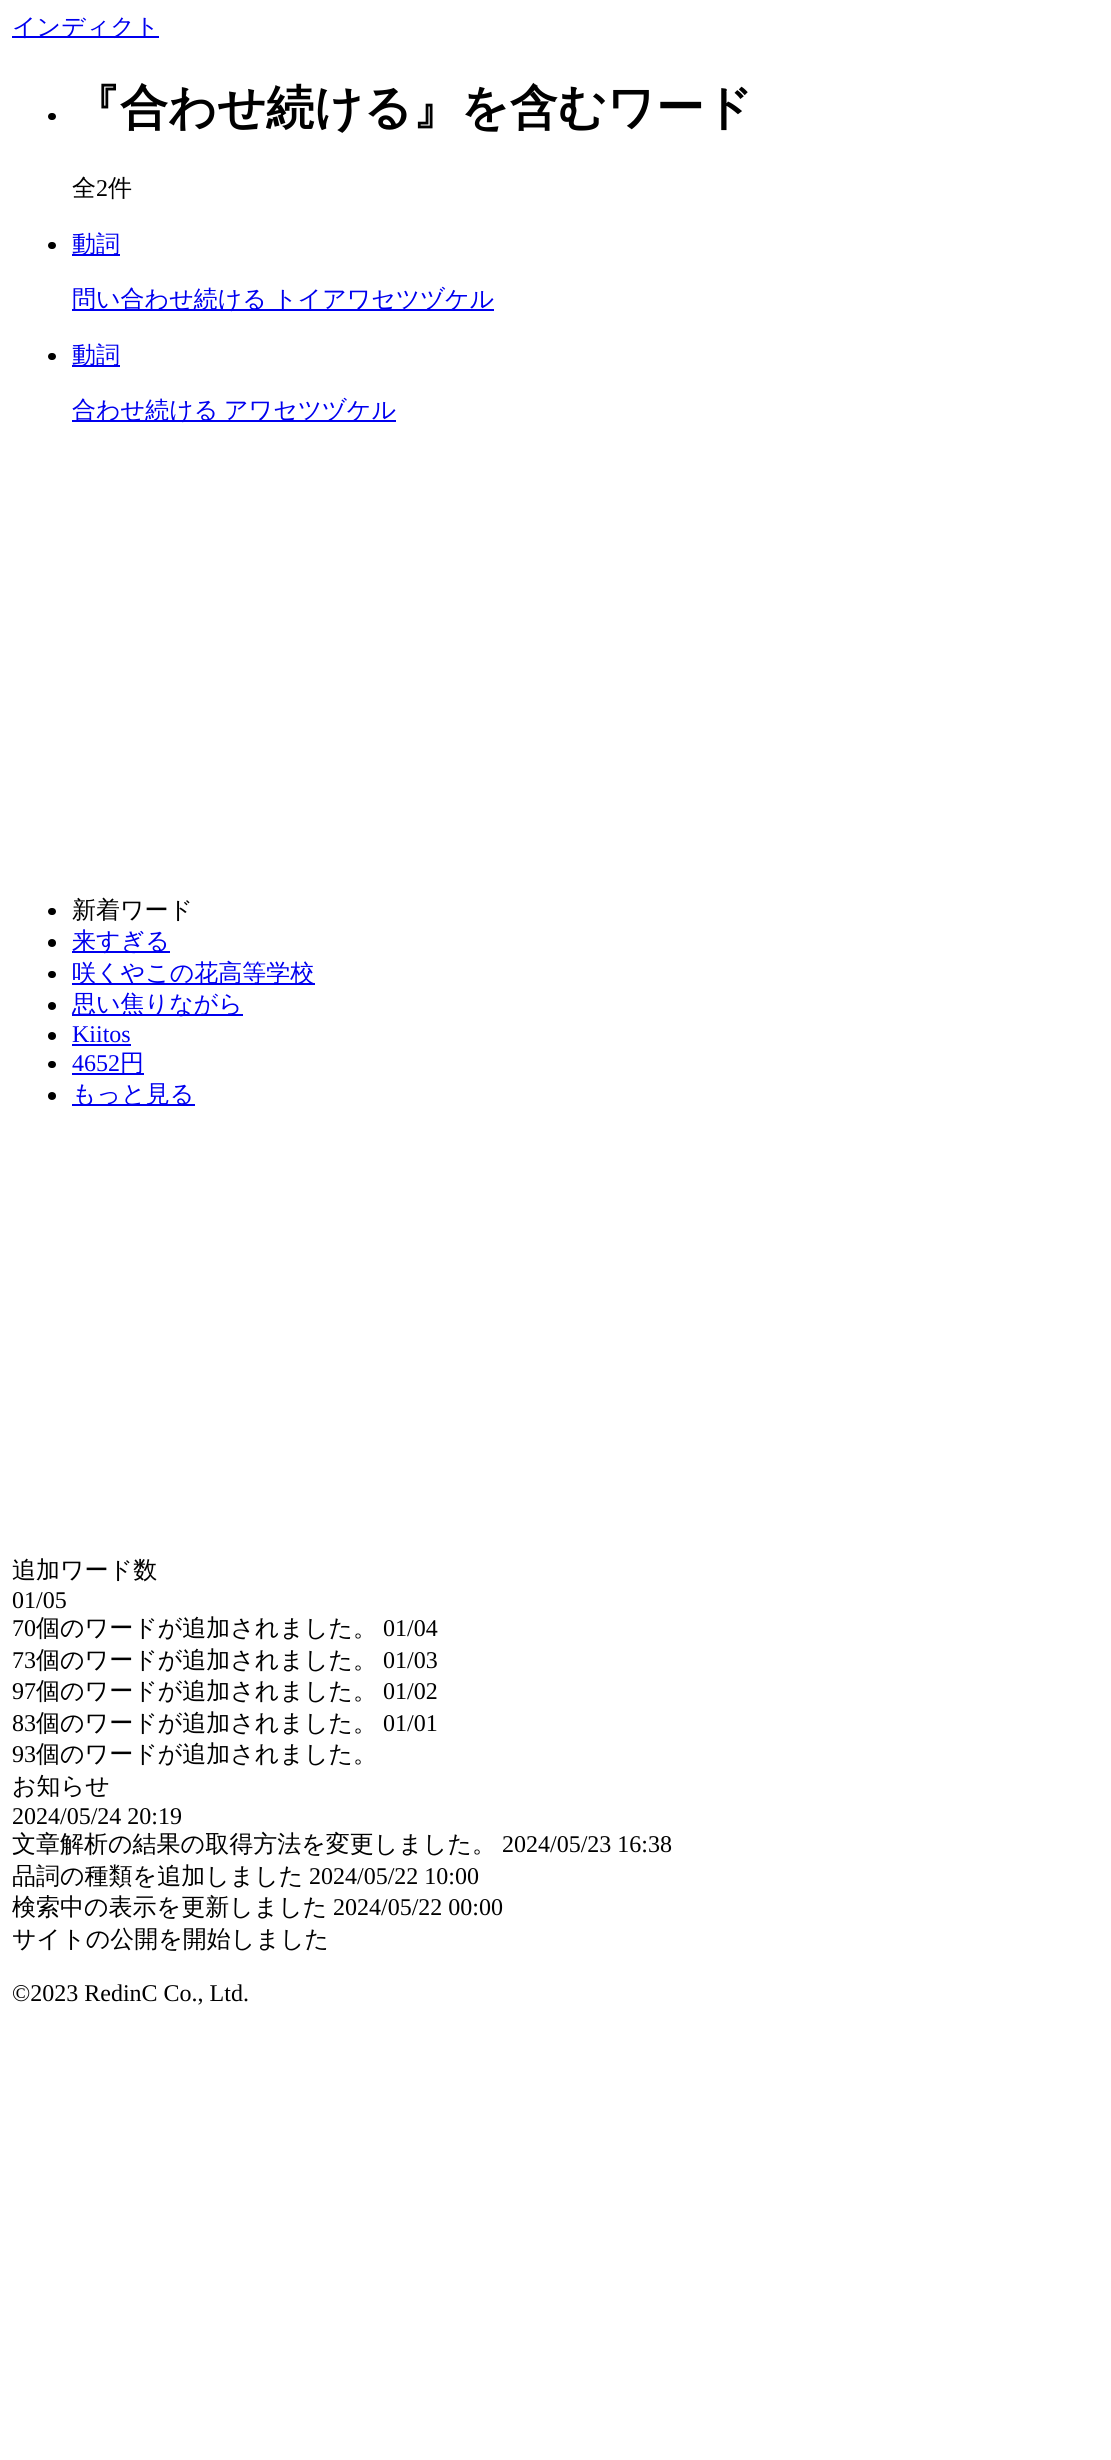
#include <cairo/cairo.h>
#include <math.h>
#include <stddef.h>

static cairo_t *cr;

static void use_color(int r, int g, int b) {
  cairo_set_source_rgb(cr, r / 255.0, g / 255.0, b / 255.0);
}

static void text(double x, double y, const char *s, const char *family, double size, int italic, int bold, int r, int g, int b) {
  cairo_select_font_face(cr, family, italic ? CAIRO_FONT_SLANT_ITALIC : CAIRO_FONT_SLANT_NORMAL,
    bold ? CAIRO_FONT_WEIGHT_BOLD : CAIRO_FONT_WEIGHT_NORMAL);
  cairo_set_font_size(cr, size);
  use_color(r, g, b);
  cairo_move_to(cr, x, y);
  cairo_show_text(cr, s);
}

static void box(double x, double y, double w, double h, int r, int g, int b) {
  use_color(r, g, b);
  cairo_rectangle(cr, x, y, w, h);
  cairo_fill(cr);
}

static void round_rect(double x, double y, double w, double h, double r) {
  cairo_new_sub_path(cr);
  cairo_arc(cr, x + w - r, y + h - r, r, 0, M_PI / 2);
  cairo_arc(cr, x + r, y + h - r, r, M_PI / 2, M_PI);
  cairo_arc(cr, x + r, y + r, r, M_PI, 1.5 * M_PI);
  cairo_arc(cr, x + w - r, y + r, r, 1.5 * M_PI, 2 * M_PI);
  cairo_close_path(cr);
}

static void draw(void) {
  use_color(255, 255, 255);
  cairo_paint(cr);
  box(12, 36, 147, 2, 0, 0, 238);
  use_color(0, 0, 0);
  round_rect(48, 113, 8, 7, 3.5);
  cairo_fill(cr);
  round_rect(48, 242, 8, 7, 3.5);
  cairo_fill(cr);
  box(72, 254, 48, 2, 0, 0, 238);
  box(72, 309, 422, 2, 0, 0, 238);
  use_color(0, 0, 0);
  round_rect(48, 353, 8, 7, 3.5);
  cairo_fill(cr);
  box(72, 365, 48, 2, 0, 0, 238);
  box(72, 420, 324, 2, 0, 0, 238);
  use_color(0, 0, 0);
  round_rect(48, 908, 8, 7, 3.5);
  cairo_fill(cr);
  cairo_arc(cr, 52, 943, 4, 0, 2 * M_PI);
  cairo_fill(cr);
  box(72, 951, 98, 2, 0, 0, 238);
  use_color(0, 0, 0);
  round_rect(48, 971, 8, 7, 3.5);
  cairo_fill(cr);
  box(72, 983, 243, 2, 0, 0, 238);
  use_color(0, 0, 0);
  cairo_arc(cr, 52, 1006, 4, 0, 2 * M_PI);
  cairo_fill(cr);
  box(72, 1014, 171, 2, 0, 0, 238);
  use_color(0, 0, 0);
  cairo_arc(cr, 52, 1036, 4, 0, 2 * M_PI);
  cairo_fill(cr);
  box(72, 1044, 59, 2, 0, 0, 238);
  use_color(0, 0, 0);
  round_rect(48, 1061, 8, 7, 3.5);
  cairo_fill(cr);
  box(72, 1073, 72, 2, 0, 0, 238);
  use_color(0, 0, 0);
  cairo_arc(cr, 52, 1096, 4, 0, 2 * M_PI);
  cairo_fill(cr);
  box(72, 1104, 123, 2, 0, 0, 238);
  text(12, 35, "インディクト", "WenQuanYi Zen Hei Medium", 24, 0, 0, 0, 0, 238);
  text(72, 124, "『合わせ続ける』を含むワード", "WenQuanYi Zen Hei", 48, 0, 1, 0, 0, 0);
  text(72, 196, "全", "WenQuanYi Zen Hei Medium", 24, 0, 0, 0, 0, 0);
  text(96, 196, "2", "Liberation Serif", 24, 0, 0, 0, 0, 0);
  text(108, 196, "件", "WenQuanYi Zen Hei Medium", 24, 0, 0, 0, 0, 0);
  text(72, 252, "動詞", "WenQuanYi Zen Hei Medium", 24, 0, 0, 0, 0, 238);
  text(72, 307, "問い合わせ続ける", "WenQuanYi Zen Hei Medium", 24, 0, 0, 0, 0, 238);
  text(273, 307, "トイアワセツヅケル", "WenQuanYi Zen Hei Medium", 24, 0, 0, 0, 0, 238);
  text(72, 363, "動詞", "WenQuanYi Zen Hei Medium", 24, 0, 0, 0, 0, 238);
  text(72, 418, "合わせ続ける", "WenQuanYi Zen Hei Medium", 24, 0, 0, 0, 0, 238);
  text(224, 418, "アワセツヅケル", "WenQuanYi Zen Hei Medium", 24, 0, 0, 0, 0, 238);
  text(72, 918, "新着ワード", "WenQuanYi Zen Hei Medium", 24, 0, 0, 0, 0, 0);
  text(72, 949, "来すぎる", "WenQuanYi Zen Hei Medium", 24, 0, 0, 0, 0, 238);
  text(72, 981, "咲くやこの花高等学校", "WenQuanYi Zen Hei Medium", 24, 0, 0, 0, 0, 238);
  text(72, 1012, "思い焦りながら", "WenQuanYi Zen Hei Medium", 24, 0, 0, 0, 0, 238);
  text(72, 1042, "Kiitos", "Liberation Serif", 24, 0, 0, 0, 0, 238);
  text(72, 1071, "4652", "Liberation Serif", 24, 0, 0, 0, 0, 238);
  text(120, 1071, "円", "WenQuanYi Zen Hei Medium", 24, 0, 0, 0, 0, 238);
  text(72, 1102, "もっと見る", "WenQuanYi Zen Hei Medium", 24, 0, 0, 0, 0, 238);
  text(12, 1578, "追加ワード数", "WenQuanYi Zen Hei Medium", 24, 0, 0, 0, 0, 0);
  text(12, 1608, "01/05", "Liberation Serif", 24, 0, 0, 0, 0, 0);
  text(12, 1636, "70", "Liberation Serif", 24, 0, 0, 0, 0, 0);
  text(36, 1636, "個のワードが追加されました。", "WenQuanYi Zen Hei Medium", 24, 0, 0, 0, 0, 0);
  text(383, 1636, "01/04", "Liberation Serif", 24, 0, 0, 0, 0, 0);
  text(12, 1668, "73", "Liberation Serif", 24, 0, 0, 0, 0, 0);
  text(36, 1668, "個のワードが追加されました。", "WenQuanYi Zen Hei Medium", 24, 0, 0, 0, 0, 0);
  text(383, 1668, "01/03", "Liberation Serif", 24, 0, 0, 0, 0, 0);
  text(12, 1699, "97", "Liberation Serif", 24, 0, 0, 0, 0, 0);
  text(36, 1699, "個のワードが追加されました。", "WenQuanYi Zen Hei Medium", 24, 0, 0, 0, 0, 0);
  text(383, 1699, "01/02", "Liberation Serif", 24, 0, 0, 0, 0, 0);
  text(12, 1731, "83", "Liberation Serif", 24, 0, 0, 0, 0, 0);
  text(36, 1731, "個のワードが追加されました。", "WenQuanYi Zen Hei Medium", 24, 0, 0, 0, 0, 0);
  text(383, 1731, "01/01", "Liberation Serif", 24, 0, 0, 0, 0, 0);
  text(12, 1762, "93", "Liberation Serif", 24, 0, 0, 0, 0, 0);
  text(36, 1762, "個のワードが追加されました。", "WenQuanYi Zen Hei Medium", 24, 0, 0, 0, 0, 0);
  text(12, 1794, "お知らせ", "WenQuanYi Zen Hei Medium", 24, 0, 0, 0, 0, 0);
  text(12, 1824, "2024/05/24 20:19", "Liberation Serif", 24, 0, 0, 0, 0, 0);
  text(12, 1852, "文章解析の結果の取得方法を変更しました。", "WenQuanYi Zen Hei Medium", 24, 0, 0, 0, 0, 0);
  text(502, 1852, "2024/05/23 16:38", "Liberation Serif", 24, 0, 0, 0, 0, 0);
  text(12, 1884, "品詞の種類を追加しました", "WenQuanYi Zen Hei Medium", 24, 0, 0, 0, 0, 0);
  text(309, 1884, "2024/05/22 10:00", "Liberation Serif", 24, 0, 0, 0, 0, 0);
  text(12, 1915, "検索中の表示を更新しました", "WenQuanYi Zen Hei Medium", 24, 0, 0, 0, 0, 0);
  text(333, 1915, "2024/05/22 00:00", "Liberation Serif", 24, 0, 0, 0, 0, 0);
  text(12, 1947, "サイトの公開を開始しました", "WenQuanYi Zen Hei Medium", 24, 0, 0, 0, 0, 0);
  text(12, 2001, "©2023 RedinC Co., Ltd.", "Liberation Serif", 24, 0, 0, 0, 0, 0);
}

int main(void) {
  cairo_surface_t *surface = cairo_image_surface_create(CAIRO_FORMAT_RGB24, 1111, 2460);
  cr = cairo_create(surface);
  cairo_font_options_t *options = cairo_font_options_create();
  cairo_font_options_set_hint_metrics(options, CAIRO_HINT_METRICS_OFF);
  cairo_font_options_set_hint_style(options, CAIRO_HINT_STYLE_NONE);
  cairo_set_font_options(cr, options);
  cairo_set_miter_limit(cr, 4);
  draw();
  cairo_surface_write_to_png(surface, "out.png");
  cairo_font_options_destroy(options);
  cairo_destroy(cr);
  cairo_surface_destroy(surface);
  return 0;
}
